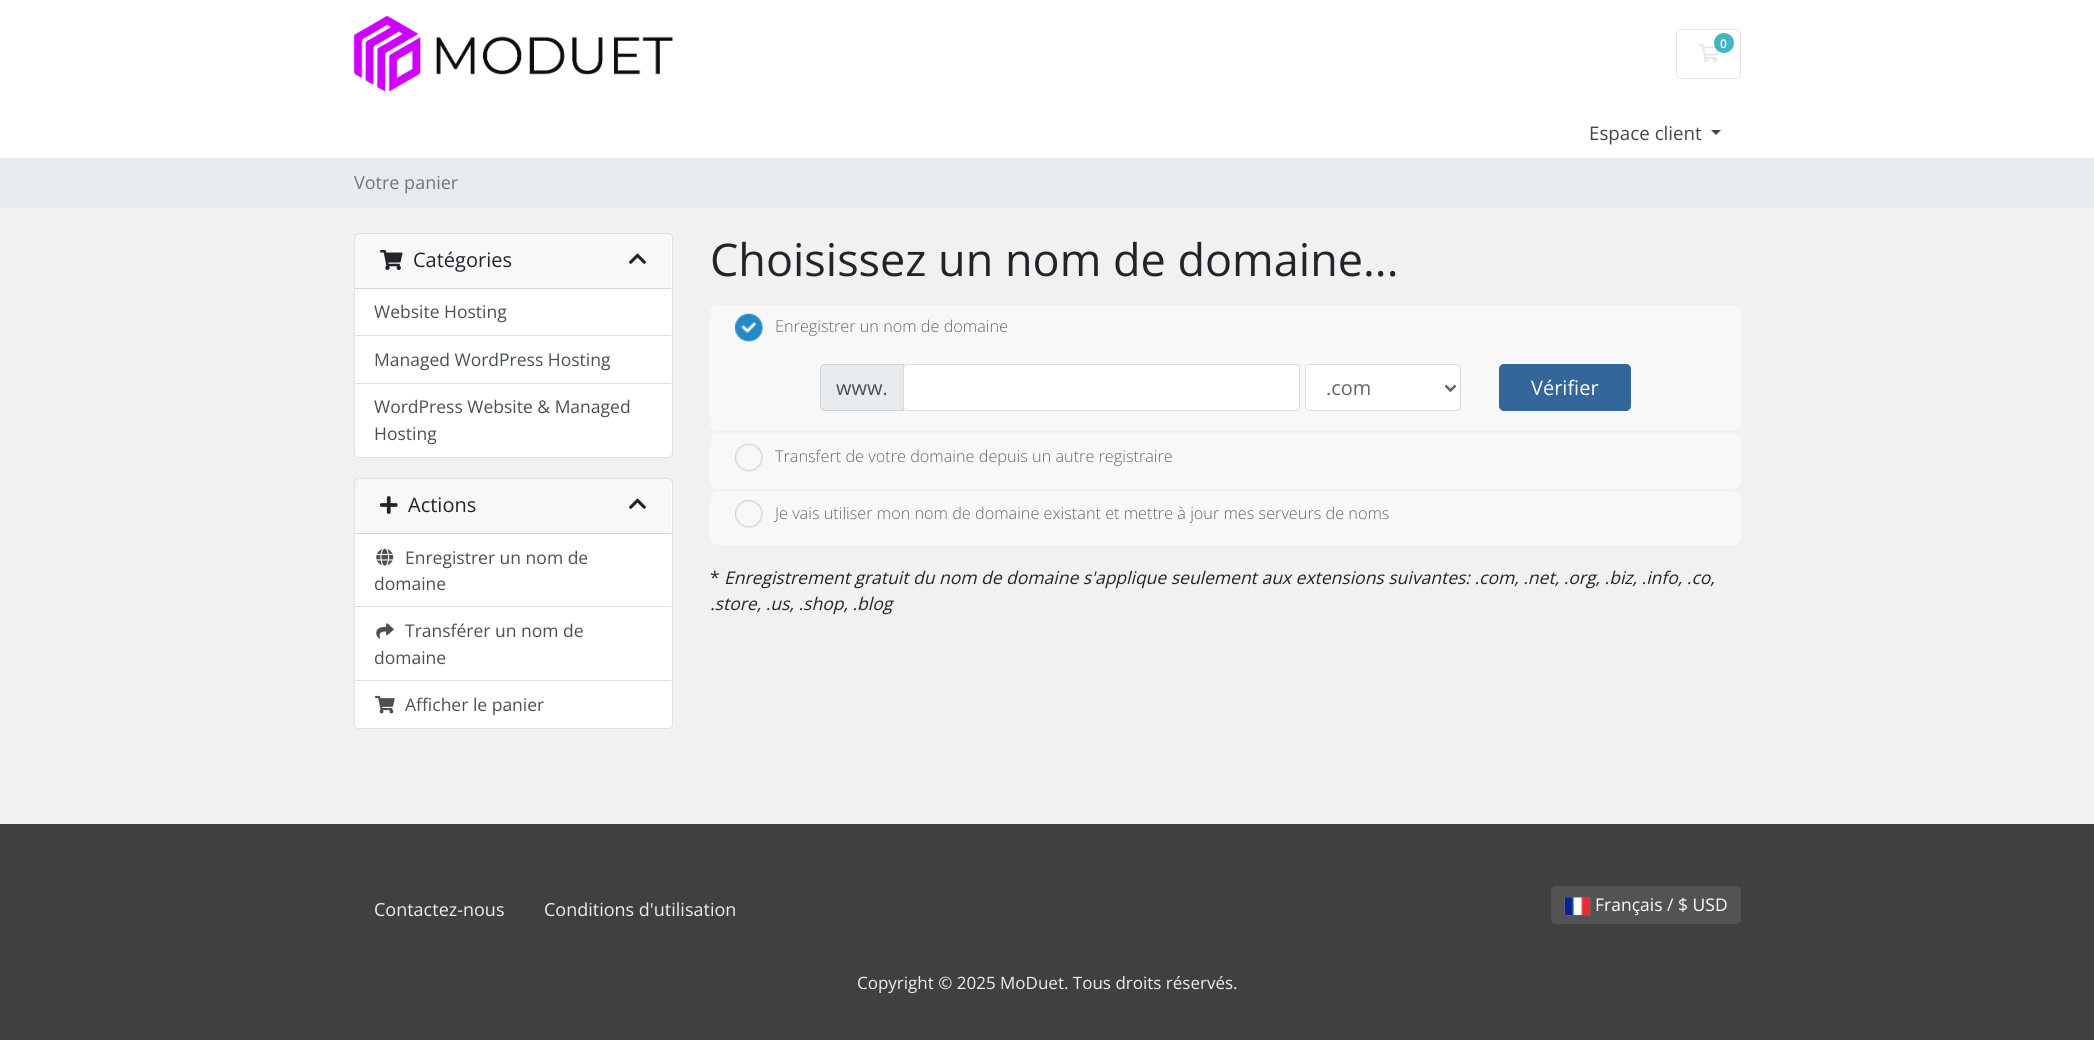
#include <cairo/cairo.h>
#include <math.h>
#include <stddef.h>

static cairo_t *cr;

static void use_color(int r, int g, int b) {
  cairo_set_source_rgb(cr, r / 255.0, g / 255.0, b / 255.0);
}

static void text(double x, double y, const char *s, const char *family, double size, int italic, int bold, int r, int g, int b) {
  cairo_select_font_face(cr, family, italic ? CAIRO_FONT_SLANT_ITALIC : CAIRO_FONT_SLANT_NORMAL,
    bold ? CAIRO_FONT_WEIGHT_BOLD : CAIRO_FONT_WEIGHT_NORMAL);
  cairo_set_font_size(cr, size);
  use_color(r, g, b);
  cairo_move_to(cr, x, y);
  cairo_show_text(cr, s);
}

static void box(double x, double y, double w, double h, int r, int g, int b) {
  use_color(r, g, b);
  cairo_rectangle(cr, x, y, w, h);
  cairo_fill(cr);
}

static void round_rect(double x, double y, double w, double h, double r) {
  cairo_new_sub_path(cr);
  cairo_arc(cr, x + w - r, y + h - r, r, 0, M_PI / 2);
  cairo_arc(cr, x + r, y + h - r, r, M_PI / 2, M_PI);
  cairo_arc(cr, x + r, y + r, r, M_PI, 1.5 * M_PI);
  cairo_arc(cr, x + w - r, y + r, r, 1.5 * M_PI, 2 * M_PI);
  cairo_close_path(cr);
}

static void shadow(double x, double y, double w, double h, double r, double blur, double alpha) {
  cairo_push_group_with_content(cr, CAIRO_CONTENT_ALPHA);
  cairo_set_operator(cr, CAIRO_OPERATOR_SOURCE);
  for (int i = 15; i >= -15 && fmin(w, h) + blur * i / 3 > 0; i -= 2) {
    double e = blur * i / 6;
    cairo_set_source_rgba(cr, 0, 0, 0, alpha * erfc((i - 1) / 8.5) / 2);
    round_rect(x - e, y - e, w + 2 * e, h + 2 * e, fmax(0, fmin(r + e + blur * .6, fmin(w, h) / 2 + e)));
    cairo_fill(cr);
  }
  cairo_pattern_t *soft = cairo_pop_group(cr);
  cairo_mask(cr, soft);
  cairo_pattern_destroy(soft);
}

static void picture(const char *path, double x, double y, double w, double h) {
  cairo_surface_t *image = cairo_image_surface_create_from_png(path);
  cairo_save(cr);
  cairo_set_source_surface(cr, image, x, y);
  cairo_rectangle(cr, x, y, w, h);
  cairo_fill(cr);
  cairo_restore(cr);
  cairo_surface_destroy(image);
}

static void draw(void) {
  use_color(241, 241, 241);
  cairo_paint(cr);
  box(0, 0, 2094, 158, 255, 255, 255);
  picture("img_01.png", 353, 16, 320, 76);
  round_rect(1676.5, 29.5, 64, 49, 4.5);
  use_color(229, 229, 229);
  cairo_set_line_width(cr, 1);
  cairo_stroke(cr);
  picture("img_02.png", 1698, 44, 21, 19);
  cairo_set_source_rgba(cr, 0.09, 0.635, 0.722, 0.8);
  cairo_arc(cr, 1724, 43, 10, 0, 2 * M_PI);
  cairo_fill(cr);
  use_color(68, 68, 68);
  cairo_new_path(cr);
  cairo_move_to(cr, 1711, 130);
  cairo_line_to(cr, 1721, 130);
  cairo_line_to(cr, 1716, 135);
  cairo_close_path(cr);
  cairo_fill(cr);
  box(0, 158, 2094, 50, 233, 236, 239);
  use_color(255, 255, 255);
  round_rect(354, 233, 319, 225, 5);
  cairo_fill(cr);
  round_rect(354.5, 233.5, 318, 224, 4.5);
  cairo_set_source_rgba(cr, 0, 0, 0, 0.12);
  cairo_stroke(cr);
  cairo_set_source_rgba(cr, 0, 0, 0, 0.03);
  cairo_rectangle(cr, 355, 234, 316, 54);
  cairo_fill(cr);
  box(355, 288, 316, 1, 216, 216, 216);
  picture("img_03.png", 380, 250, 23, 20);
  picture("img_04.png", 629, 253, 17, 11);
  box(355, 335, 316, 1, 223, 223, 223);
  box(355, 383, 316, 1, 223, 223, 223);
  use_color(255, 255, 255);
  round_rect(354, 478, 319, 251, 5);
  cairo_fill(cr);
  round_rect(354.5, 478.5, 318, 250, 4.5);
  cairo_set_source_rgba(cr, 0, 0, 0, 0.12);
  cairo_stroke(cr);
  cairo_set_source_rgba(cr, 0, 0, 0, 0.03);
  cairo_rectangle(cr, 355, 479, 316, 54);
  cairo_fill(cr);
  box(355, 533, 316, 1, 216, 216, 216);
  picture("img_05.png", 380, 496, 18, 18);
  picture("img_04.png", 629, 498, 17, 11);
  box(355, 606, 316, 1, 223, 223, 223);
  picture("img_06.png", 376, 548, 18, 18);
  box(355, 680, 316, 1, 223, 223, 223);
  picture("img_07.png", 376, 623, 18, 16);
  use_color(255, 255, 255);
  cairo_new_path(cr);
  cairo_move_to(cr, 355, 681);
  cairo_line_to(cr, 671, 681);
  cairo_line_to(cr, 671, 724);
  cairo_curve_to(cr, 671, 726, 669, 728, 667, 728);
  cairo_line_to(cr, 359, 728);
  cairo_curve_to(cr, 357, 728, 355, 726, 355, 724);
  cairo_close_path(cr);
  cairo_fill(cr);
  picture("img_08.png", 375, 695, 20, 19);
  use_color(248, 248, 248);
  round_rect(710, 305, 1031, 126, 8);
  cairo_fill(cr);
  picture("img_09.png", 735, 313, 28, 29);
  use_color(233, 236, 239);
  cairo_new_path(cr);
  cairo_move_to(cr, 825, 364.5);
  cairo_line_to(cr, 903.5, 364.5);
  cairo_line_to(cr, 903.5, 410.5);
  cairo_line_to(cr, 825, 410.5);
  cairo_curve_to(cr, 822.5, 410.5, 820.5, 408.5, 820.5, 406);
  cairo_line_to(cr, 820.5, 369);
  cairo_curve_to(cr, 820.5, 366.5, 822.5, 364.5, 825, 364.5);
  cairo_close_path(cr);
  cairo_fill_preserve(cr);
  use_color(206, 212, 218);
  cairo_stroke(cr);
  use_color(255, 255, 255);
  round_rect(904, 365, 395, 45, 2.5);
  cairo_fill(cr);
  round_rect(903.5, 364.5, 396, 46, 3.5);
  use_color(221, 221, 221);
  cairo_stroke(cr);
  use_color(255, 255, 255);
  round_rect(1306, 365, 154, 45, 2.5);
  cairo_fill(cr);
  round_rect(1305.5, 364.5, 155, 46, 3.5);
  use_color(221, 221, 221);
  cairo_stroke(cr);
  cairo_new_path(cr);
  cairo_move_to(cr, 1445.5, 385.5);
  cairo_line_to(cr, 1450.5, 390.5);
  cairo_line_to(cr, 1455.5, 385.5);
  use_color(98, 98, 98);
  cairo_set_line_width(cr, 2.5);
  cairo_stroke(cr);
  use_color(51, 102, 153);
  round_rect(1499.5, 364.5, 131, 46, 4.5);
  cairo_fill_preserve(cr);
  cairo_set_line_width(cr, 1);
  cairo_stroke(cr);
  use_color(248, 248, 248);
  round_rect(710, 434, 1031, 55, 8);
  cairo_fill(cr);
  picture("img_10.png", 735, 443, 28, 29);
  round_rect(710, 491, 1031, 54, 8);
  cairo_fill(cr);
  picture("img_11.png", 735, 500, 28, 28);
  box(0, 824, 2094, 216, 64, 64, 64);
  use_color(83, 83, 83);
  round_rect(1551, 886, 190, 38, 5);
  cairo_fill(cr);
  use_color(136, 136, 136);
  shadow(1565, 898, 25, 17, 0, 0.5, 1);
  picture("img_12.png", 1565, 897, 25, 18);
  text(1720, 48, "0", "Open Sans SemiBold", 12, 0, 0, 255, 255, 255);
  text(1589, 140, "Espace client", "Open Sans", 18.75, 0, 0, 68, 68, 68);
  text(354, 189, "Votre panier", "Open Sans", 18, 0, 0, 108, 117, 125);
  text(413, 267, "Catégories", "Open Sans", 20, 0, 0, 33, 37, 41);
  text(374, 318, "Website Hosting", "Open Sans", 17.5, 0, 0, 73, 80, 87);
  text(374, 366, "Managed WordPress Hosting", "Open Sans", 17.5, 0, 0, 73, 80, 87);
  text(374, 413, "WordPress Website & Managed", "Open Sans", 17.5, 0, 0, 73, 80, 87);
  text(374, 440, "Hosting", "Open Sans", 17.5, 0, 0, 73, 80, 87);
  text(408, 512, "Actions", "Open Sans", 20, 0, 0, 33, 37, 41);
  text(405, 564, "Enregistrer un nom de", "Open Sans", 17.5, 0, 0, 73, 80, 87);
  text(374, 590, "domaine", "Open Sans", 17.5, 0, 0, 73, 80, 87);
  text(405, 637, "Transférer un nom de", "Open Sans", 17.5, 0, 0, 73, 80, 87);
  text(374, 664, "domaine", "Open Sans", 17.5, 0, 0, 73, 80, 87);
  text(405, 711, "Afficher le panier", "Open Sans", 17.5, 0, 0, 73, 80, 87);
  text(710, 276, "Choisissez un nom de domaine...", "Open Sans", 45, 0, 0, 33, 37, 41);
  text(775, 332, "Enregistrer un nom de domaine", "Open Sans Light", 16.25, 0, 0, 102, 102, 102);
  text(836, 395, "www.", "Open Sans", 20, 0, 0, 73, 80, 87);
  text(1326, 395, ".com", "Open Sans", 20, 0, 0, 102, 102, 102);
  text(1531, 395, "Vérifier", "Open Sans", 20, 0, 0, 255, 255, 255);
  text(775, 462, "Transfert de votre domaine depuis un autre registraire", "Open Sans Light", 16.25, 0, 0, 102, 102, 102);
  text(775, 519, "Je vais utiliser mon nom de domaine existant et mettre à jour mes serveurs de noms", "Open Sans Light", 16.25, 0, 0, 102, 102, 102);
  text(710, 584, "*", "Open Sans", 17.5, 0, 0, 33, 37, 41);
  text(724, 584, "Enregistrement gratuit du nom de domaine s'applique seulement aux extensions suivantes: .com, .net, .org, .biz, .info, .co,", "Open Sans", 17.5, 1, 0, 33, 37, 41);
  text(710, 610, ".store, .us, .shop, .blog", "Open Sans", 17.5, 1, 0, 33, 37, 41);
  text(374, 916, "Contactez-nous", "Open Sans", 18, 0, 0, 238, 238, 238);
  text(544, 916, "Conditions d'utilisation", "Open Sans", 18, 0, 0, 238, 238, 238);
  text(1595, 911, "Français / $ USD", "Open Sans", 17.5, 0, 0, 255, 255, 255);
  text(857, 989, "Copyright © 2025 MoDuet. Tous droits réservés.", "Open Sans", 17, 0, 0, 238, 238, 238);
}

int main(void) {
  cairo_surface_t *surface = cairo_image_surface_create(CAIRO_FORMAT_RGB24, 2094, 1040);
  cr = cairo_create(surface);
  cairo_font_options_t *options = cairo_font_options_create();
  cairo_font_options_set_hint_metrics(options, CAIRO_HINT_METRICS_OFF);
  cairo_font_options_set_hint_style(options, CAIRO_HINT_STYLE_NONE);
  cairo_set_font_options(cr, options);
  cairo_set_miter_limit(cr, 4);
  draw();
  cairo_surface_write_to_png(surface, "out.png");
  cairo_font_options_destroy(options);
  cairo_destroy(cr);
  cairo_surface_destroy(surface);
  return 0;
}
